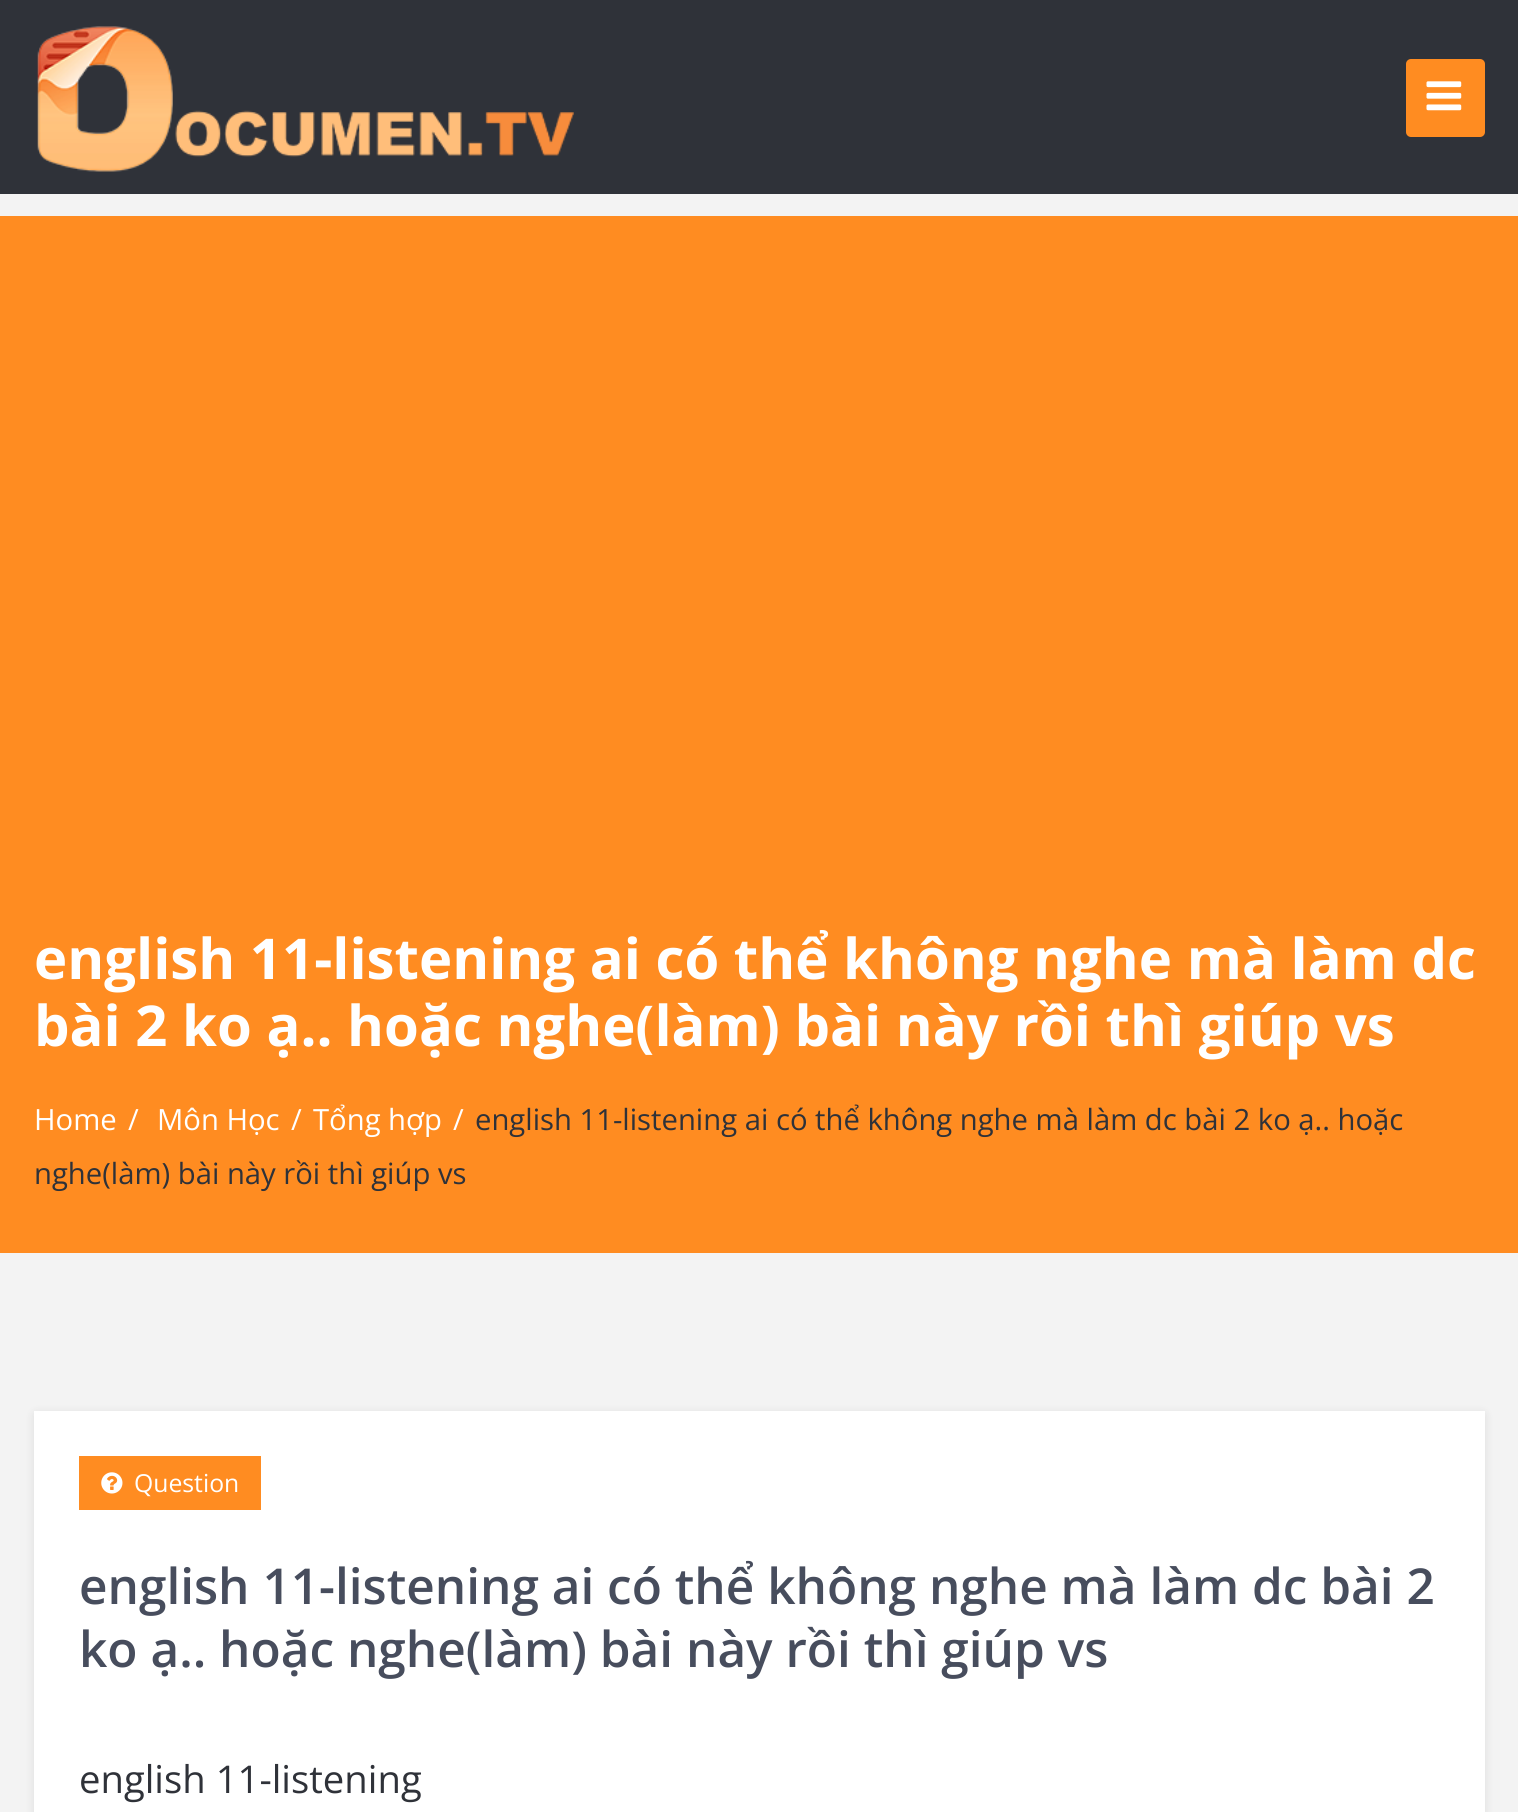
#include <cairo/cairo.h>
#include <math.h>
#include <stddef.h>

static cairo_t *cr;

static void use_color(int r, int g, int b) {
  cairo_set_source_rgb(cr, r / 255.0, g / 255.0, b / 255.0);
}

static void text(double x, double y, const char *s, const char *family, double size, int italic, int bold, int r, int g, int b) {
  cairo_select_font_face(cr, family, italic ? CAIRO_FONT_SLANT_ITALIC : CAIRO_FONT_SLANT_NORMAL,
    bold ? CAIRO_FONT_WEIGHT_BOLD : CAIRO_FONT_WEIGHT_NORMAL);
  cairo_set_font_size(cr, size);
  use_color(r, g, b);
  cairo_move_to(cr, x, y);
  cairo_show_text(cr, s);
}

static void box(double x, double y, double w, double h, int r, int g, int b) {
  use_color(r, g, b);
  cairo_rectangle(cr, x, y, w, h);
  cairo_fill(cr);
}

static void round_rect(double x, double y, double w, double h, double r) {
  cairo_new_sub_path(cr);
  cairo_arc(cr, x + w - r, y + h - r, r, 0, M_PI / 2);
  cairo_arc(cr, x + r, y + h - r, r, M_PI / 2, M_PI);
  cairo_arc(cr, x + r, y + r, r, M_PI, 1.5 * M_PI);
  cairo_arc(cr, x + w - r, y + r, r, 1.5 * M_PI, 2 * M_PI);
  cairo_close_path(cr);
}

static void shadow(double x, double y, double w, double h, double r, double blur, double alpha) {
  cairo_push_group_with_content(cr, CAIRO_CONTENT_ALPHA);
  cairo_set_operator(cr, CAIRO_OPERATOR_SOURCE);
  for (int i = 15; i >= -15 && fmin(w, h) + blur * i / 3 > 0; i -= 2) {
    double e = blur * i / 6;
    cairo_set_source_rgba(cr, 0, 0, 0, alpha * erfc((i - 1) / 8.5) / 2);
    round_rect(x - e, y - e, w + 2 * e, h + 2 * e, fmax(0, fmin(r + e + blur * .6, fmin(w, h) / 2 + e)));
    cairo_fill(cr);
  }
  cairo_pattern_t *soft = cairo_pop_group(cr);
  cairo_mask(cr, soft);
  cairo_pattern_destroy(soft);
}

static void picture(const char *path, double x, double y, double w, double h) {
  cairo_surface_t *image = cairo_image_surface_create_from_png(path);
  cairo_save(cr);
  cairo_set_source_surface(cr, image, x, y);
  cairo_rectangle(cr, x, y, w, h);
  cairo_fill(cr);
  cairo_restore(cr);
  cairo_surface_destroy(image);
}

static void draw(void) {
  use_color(243, 243, 243);
  cairo_paint(cr);
  box(0, 0, 1518, 194, 47, 50, 57);
  picture("img_01.png", 37, 26, 537, 146);
  use_color(255, 140, 33);
  round_rect(1406, 59, 79, 78, 5);
  cairo_fill(cr);
  picture("img_02.png", 1426, 81, 36, 30);
  box(0, 216, 1518, 1037, 255, 140, 33);
  use_color(0, 0, 0);
  shadow(36, 1415, 1447, 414, 0, 5.5, 0.13);
  box(34, 1411, 1451, 401, 255, 255, 255);
  box(79, 1456, 182, 54, 255, 140, 33);
  picture("img_03.png", 101, 1472, 22, 22);
  text(34, 979, "english 11-listening ai có thể không nghe mà làm dc", "Open Sans", 56.25, 0, 1, 255, 255, 255);
  text(34, 1046, "bài 2 ko ạ.. hoặc nghe(làm) bài này rồi thì giúp vs", "Open Sans", 56.25, 0, 1, 255, 255, 255);
  text(34, 1130, "Home", "Open Sans", 29.25, 0, 0, 255, 255, 255);
  text(128, 1130, "/", "Open Sans", 29.25, 0, 0, 255, 255, 255);
  text(157, 1130, "Môn Học", "Open Sans", 29.25, 0, 0, 255, 255, 255);
  text(291, 1130, "/", "Open Sans", 29.25, 0, 0, 255, 255, 255);
  text(313, 1130, "Tổng hợp", "Open Sans", 29.25, 0, 0, 255, 255, 255);
  text(453, 1130, "/", "Open Sans", 29.25, 0, 0, 255, 255, 255);
  text(475, 1130, "english 11-listening ai có thể không nghe mà làm dc bài 2 ko ạ.. hoặc", "Open Sans", 29.25, 0, 0, 47, 50, 57);
  text(34, 1184, "nghe(làm) bài này rồi thì giúp vs", "Open Sans", 29.25, 0, 0, 47, 50, 57);
  text(134, 1492, "Question", "Open Sans", 24.75, 0, 0, 255, 255, 255);
  text(79, 1604, "english 11-listening ai có thể không nghe mà làm dc bài 2", "Open Sans SemiBold", 49.5, 0, 0, 71, 77, 93);
  text(79, 1667, "ko ạ.. hoặc nghe(làm) bài này rồi thì giúp vs", "Open Sans SemiBold", 49.5, 0, 0, 71, 77, 93);
  text(79, 1793, "english 11-listening", "Open Sans", 38.25, 0, 0, 47, 50, 57);
}

int main(void) {
  cairo_surface_t *surface = cairo_image_surface_create(CAIRO_FORMAT_RGB24, 1518, 1812);
  cr = cairo_create(surface);
  cairo_font_options_t *options = cairo_font_options_create();
  cairo_font_options_set_hint_metrics(options, CAIRO_HINT_METRICS_OFF);
  cairo_font_options_set_hint_style(options, CAIRO_HINT_STYLE_NONE);
  cairo_set_font_options(cr, options);
  cairo_set_miter_limit(cr, 4);
  draw();
  cairo_surface_write_to_png(surface, "out.png");
  cairo_font_options_destroy(options);
  cairo_destroy(cr);
  cairo_surface_destroy(surface);
  return 0;
}
